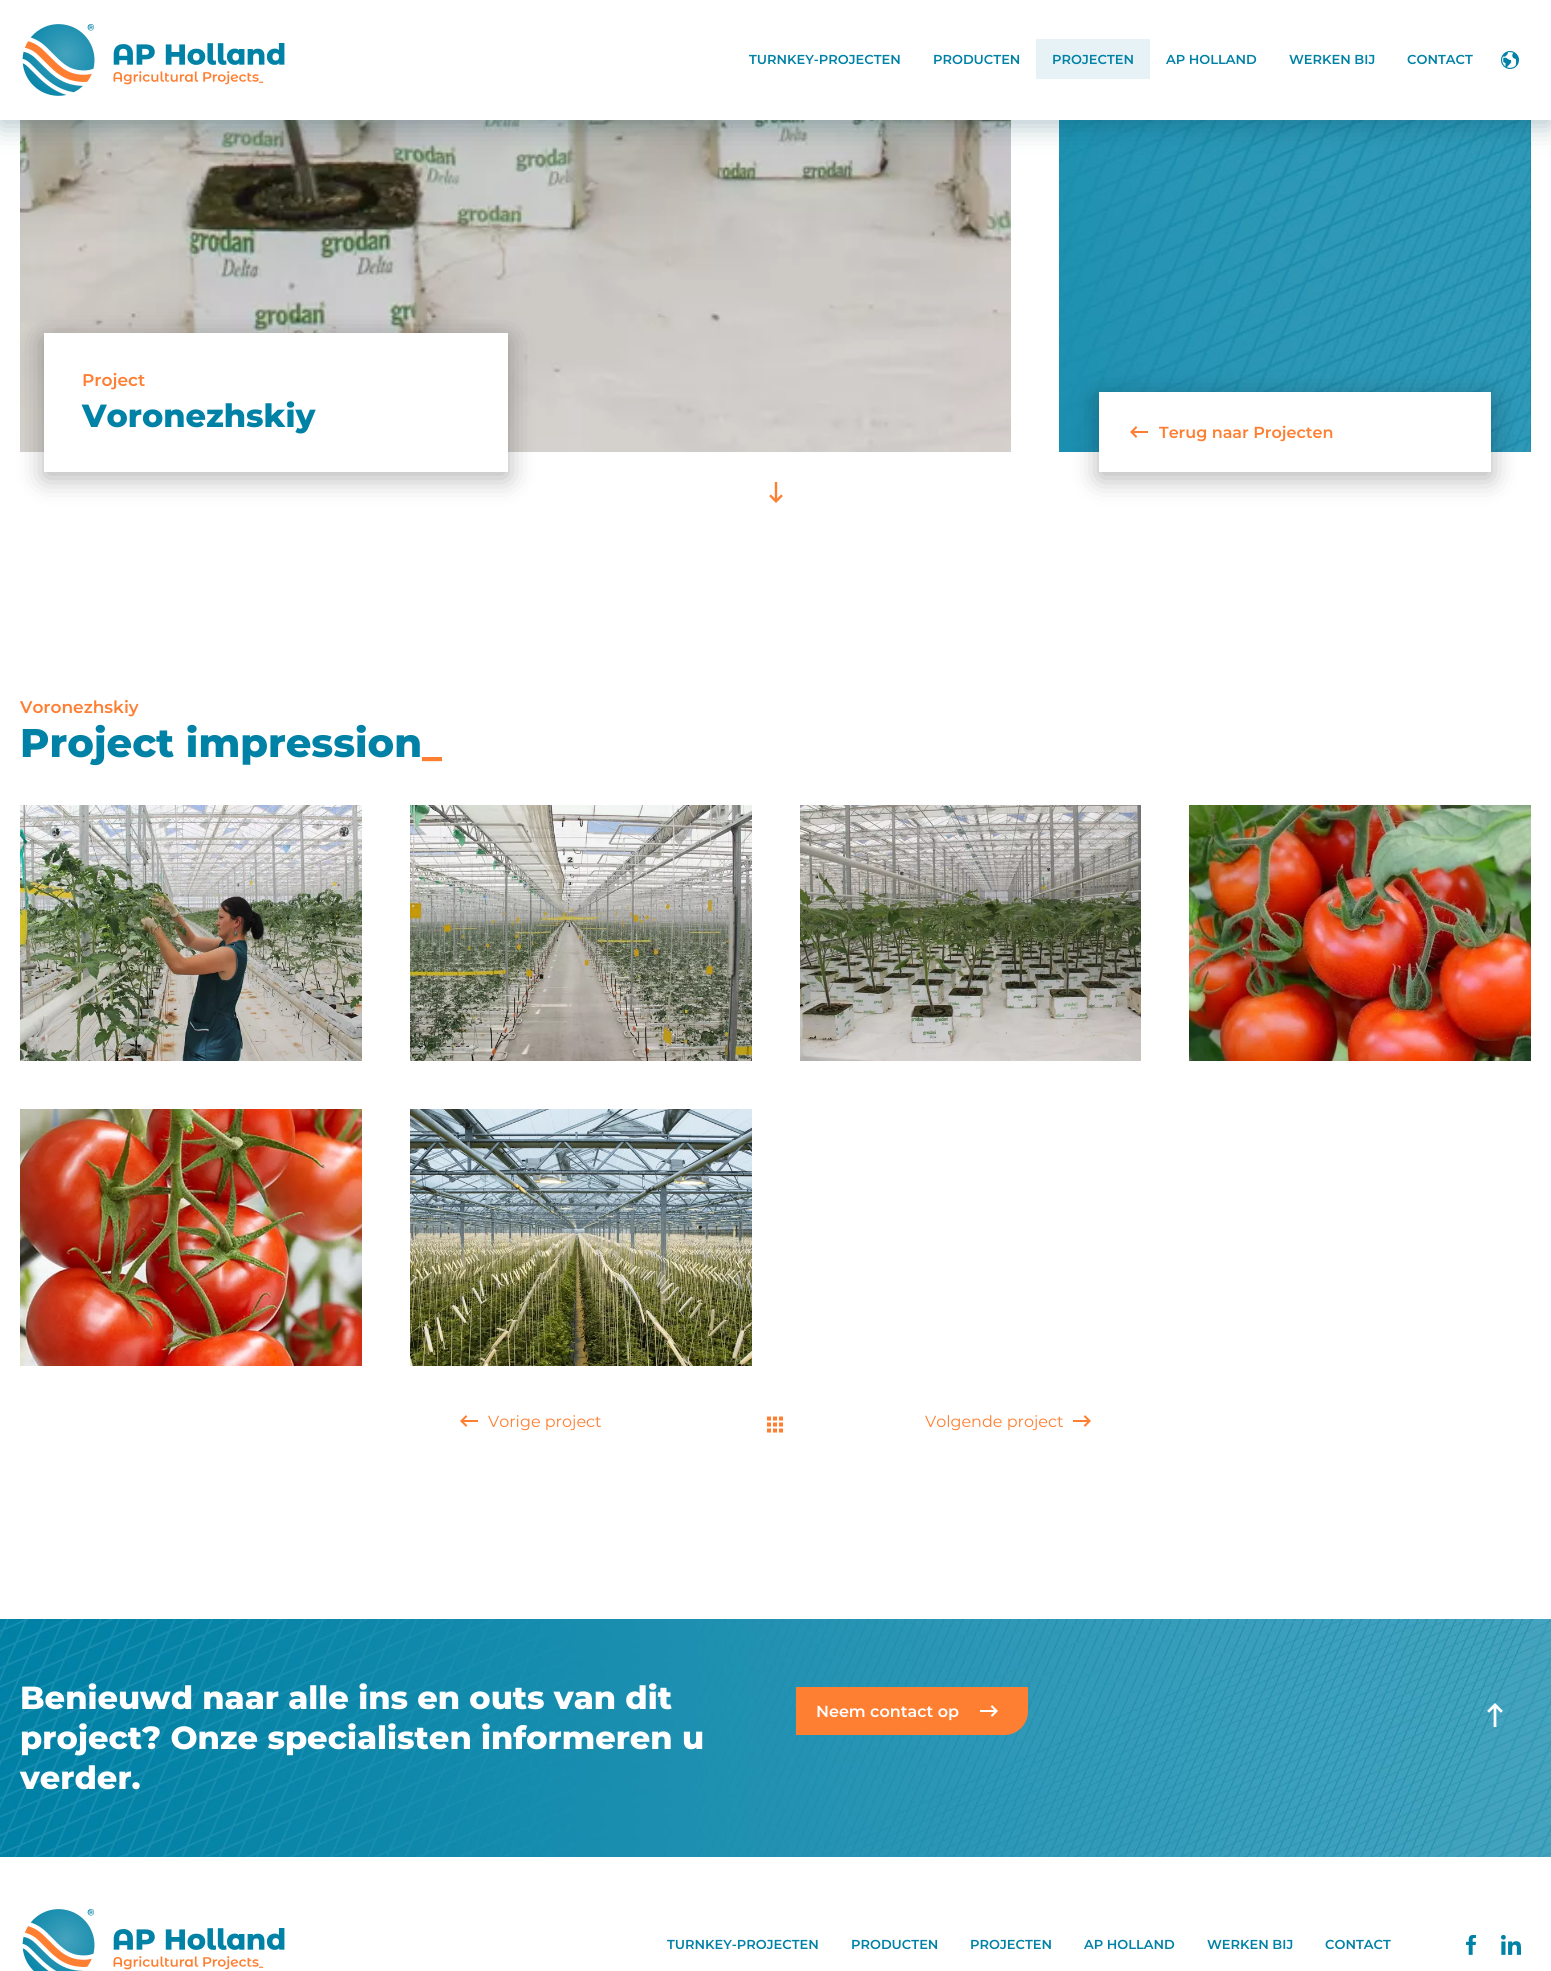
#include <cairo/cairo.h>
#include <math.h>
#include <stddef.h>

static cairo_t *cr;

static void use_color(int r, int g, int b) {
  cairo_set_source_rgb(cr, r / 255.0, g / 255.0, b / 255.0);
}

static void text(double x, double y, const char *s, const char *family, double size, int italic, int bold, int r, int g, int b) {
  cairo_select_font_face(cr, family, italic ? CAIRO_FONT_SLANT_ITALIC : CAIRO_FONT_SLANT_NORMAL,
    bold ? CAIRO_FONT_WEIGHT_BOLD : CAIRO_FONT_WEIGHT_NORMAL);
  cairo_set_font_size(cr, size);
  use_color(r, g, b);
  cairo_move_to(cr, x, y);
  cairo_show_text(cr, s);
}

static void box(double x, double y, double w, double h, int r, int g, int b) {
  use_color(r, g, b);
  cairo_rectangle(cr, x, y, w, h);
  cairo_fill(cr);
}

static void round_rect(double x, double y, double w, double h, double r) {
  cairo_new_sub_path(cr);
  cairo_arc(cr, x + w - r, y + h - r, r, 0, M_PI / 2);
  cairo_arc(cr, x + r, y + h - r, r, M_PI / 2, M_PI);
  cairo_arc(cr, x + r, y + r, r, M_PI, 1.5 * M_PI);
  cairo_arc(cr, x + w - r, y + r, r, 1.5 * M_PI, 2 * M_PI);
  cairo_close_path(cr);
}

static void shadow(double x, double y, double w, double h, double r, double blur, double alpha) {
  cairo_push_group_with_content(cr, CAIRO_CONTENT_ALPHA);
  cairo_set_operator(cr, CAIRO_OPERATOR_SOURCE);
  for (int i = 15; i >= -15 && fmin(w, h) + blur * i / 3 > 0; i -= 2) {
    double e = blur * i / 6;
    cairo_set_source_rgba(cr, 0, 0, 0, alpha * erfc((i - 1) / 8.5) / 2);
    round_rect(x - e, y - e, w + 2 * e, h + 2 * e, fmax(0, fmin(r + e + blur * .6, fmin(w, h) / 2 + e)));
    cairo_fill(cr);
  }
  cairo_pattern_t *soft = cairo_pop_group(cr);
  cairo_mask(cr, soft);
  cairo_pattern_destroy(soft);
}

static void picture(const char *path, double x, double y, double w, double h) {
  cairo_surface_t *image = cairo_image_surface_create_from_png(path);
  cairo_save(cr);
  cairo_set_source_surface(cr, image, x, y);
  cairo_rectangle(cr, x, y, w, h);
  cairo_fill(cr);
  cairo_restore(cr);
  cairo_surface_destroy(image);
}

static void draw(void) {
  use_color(255, 255, 255);
  cairo_paint(cr);
  picture("img_03.png", 20, 120, 991, 332);
  picture("img_04.png", 1059, 120, 472, 332);
  use_color(0, 64, 82);
  shadow(0, 6, 1551, 120, 0, 13, 0.3);
  box(0, 0, 1551, 120, 255, 255, 255);
  picture("img_01.png", 22, 24, 263, 72);
  box(1036, 39, 114, 40, 230, 242, 246);
  picture("img_02.png", 1501, 51, 18, 18);
  use_color(0, 0, 0);
  shadow(44, 339, 464, 139, 0, 13, 0.3);
  box(44, 333, 464, 139, 255, 255, 255);
  use_color(0, 0, 0);
  shadow(1099, 398, 392, 80, 0, 13, 0.3);
  box(1099, 392, 392, 80, 255, 255, 255);
  picture("img_05.png", 1130, 426, 18, 12);
  picture("img_06.png", 769, 482, 14, 21);
  picture("img_07.png", 20, 805, 342, 256);
  picture("img_08.png", 410, 805, 342, 256);
  picture("img_09.png", 800, 805, 341, 256);
  picture("img_10.png", 1189, 805, 342, 256);
  picture("img_11.png", 20, 1109, 342, 257);
  picture("img_12.png", 410, 1109, 342, 257);
  picture("img_05.png", 460, 1415, 18, 12);
  picture("img_13.png", 767, 1416, 16, 17);
  picture("img_14.png", 1073, 1415, 18, 12);
  picture("img_15.png", 0, 1619, 1551, 238);
  use_color(255, 127, 50);
  cairo_new_path(cr);
  cairo_move_to(cr, 796, 1687);
  cairo_line_to(cr, 1028, 1687);
  cairo_line_to(cr, 1028, 1711);
  cairo_curve_to(cr, 1028, 1724.5, 1017.5, 1735, 1004, 1735);
  cairo_line_to(cr, 796, 1735);
  cairo_close_path(cr);
  cairo_fill(cr);
  picture("img_16.png", 980, 1705, 18, 12);
  picture("img_17.png", 1487, 1703, 16, 24);
  picture("img_18.png", 22, 1909, 263, 62);
  picture("img_19.png", 1466, 1935, 10, 20);
  picture("img_20.png", 1501, 1935, 20, 20);
  text(749, 64, "TURNKEY-PROJECTEN", "Montserrat SemiBold", 13, 0, 0, 0, 129, 166);
  text(933, 64, "PRODUCTEN", "Montserrat SemiBold", 13, 0, 0, 0, 129, 166);
  text(1052, 64, "PROJECTEN", "Montserrat SemiBold", 13, 0, 0, 0, 129, 166);
  text(1166, 64, "AP HOLLAND", "Montserrat SemiBold", 13, 0, 0, 0, 129, 166);
  text(1289, 64, "WERKEN BIJ", "Montserrat SemiBold", 13, 0, 0, 0, 129, 166);
  text(1407, 64, "CONTACT", "Montserrat SemiBold", 13, 0, 0, 0, 129, 166);
  text(82, 386, "Project", "Montserrat SemiBold", 17, 0, 0, 255, 127, 50);
  text(82, 427, "Voronezhskiy", "Montserrat ExtraBold", 32, 0, 0, 0, 129, 166);
  text(1159, 438, "Terug naar Projecten", "Montserrat SemiBold", 16, 0, 0, 255, 127, 50);
  text(20, 713, "Voronezhskiy", "Montserrat SemiBold", 17, 0, 0, 255, 127, 50);
  text(20, 757, "Project impression", "Montserrat ExtraBold", 40, 0, 0, 0, 129, 166);
  text(422, 757, "_", "Montserrat ExtraBold", 40, 0, 0, 255, 127, 50);
  text(488, 1427, "Vorige project", "Montserrat", 16, 0, 0, 255, 127, 50);
  text(925, 1427, "Volgende project", "Montserrat", 16, 0, 0, 255, 127, 50);
  text(20, 1709, "Benieuwd naar alle ins en outs van dit", "Montserrat ExtraBold", 32, 0, 0, 255, 255, 255);
  text(20, 1749, "project? Onze specialisten informeren u", "Montserrat ExtraBold", 32, 0, 0, 255, 255, 255);
  text(20, 1789, "verder.", "Montserrat ExtraBold", 32, 0, 0, 255, 255, 255);
  text(816, 1717, "Neem contact op", "Montserrat SemiBold", 16, 0, 0, 255, 255, 255);
  text(667, 1949, "TURNKEY-PROJECTEN", "Montserrat SemiBold", 13, 0, 0, 0, 129, 166);
  text(851, 1949, "PRODUCTEN", "Montserrat SemiBold", 13, 0, 0, 0, 129, 166);
  text(970, 1949, "PROJECTEN", "Montserrat SemiBold", 13, 0, 0, 0, 129, 166);
  text(1084, 1949, "AP HOLLAND", "Montserrat SemiBold", 13, 0, 0, 0, 129, 166);
  text(1207, 1949, "WERKEN BIJ", "Montserrat SemiBold", 13, 0, 0, 0, 129, 166);
  text(1325, 1949, "CONTACT", "Montserrat SemiBold", 13, 0, 0, 0, 129, 166);
}

int main(void) {
  cairo_surface_t *surface = cairo_image_surface_create(CAIRO_FORMAT_RGB24, 1551, 1971);
  cr = cairo_create(surface);
  cairo_font_options_t *options = cairo_font_options_create();
  cairo_font_options_set_hint_metrics(options, CAIRO_HINT_METRICS_OFF);
  cairo_font_options_set_hint_style(options, CAIRO_HINT_STYLE_NONE);
  cairo_set_font_options(cr, options);
  cairo_set_miter_limit(cr, 4);
  draw();
  cairo_surface_write_to_png(surface, "out.png");
  cairo_font_options_destroy(options);
  cairo_destroy(cr);
  cairo_surface_destroy(surface);
  return 0;
}
